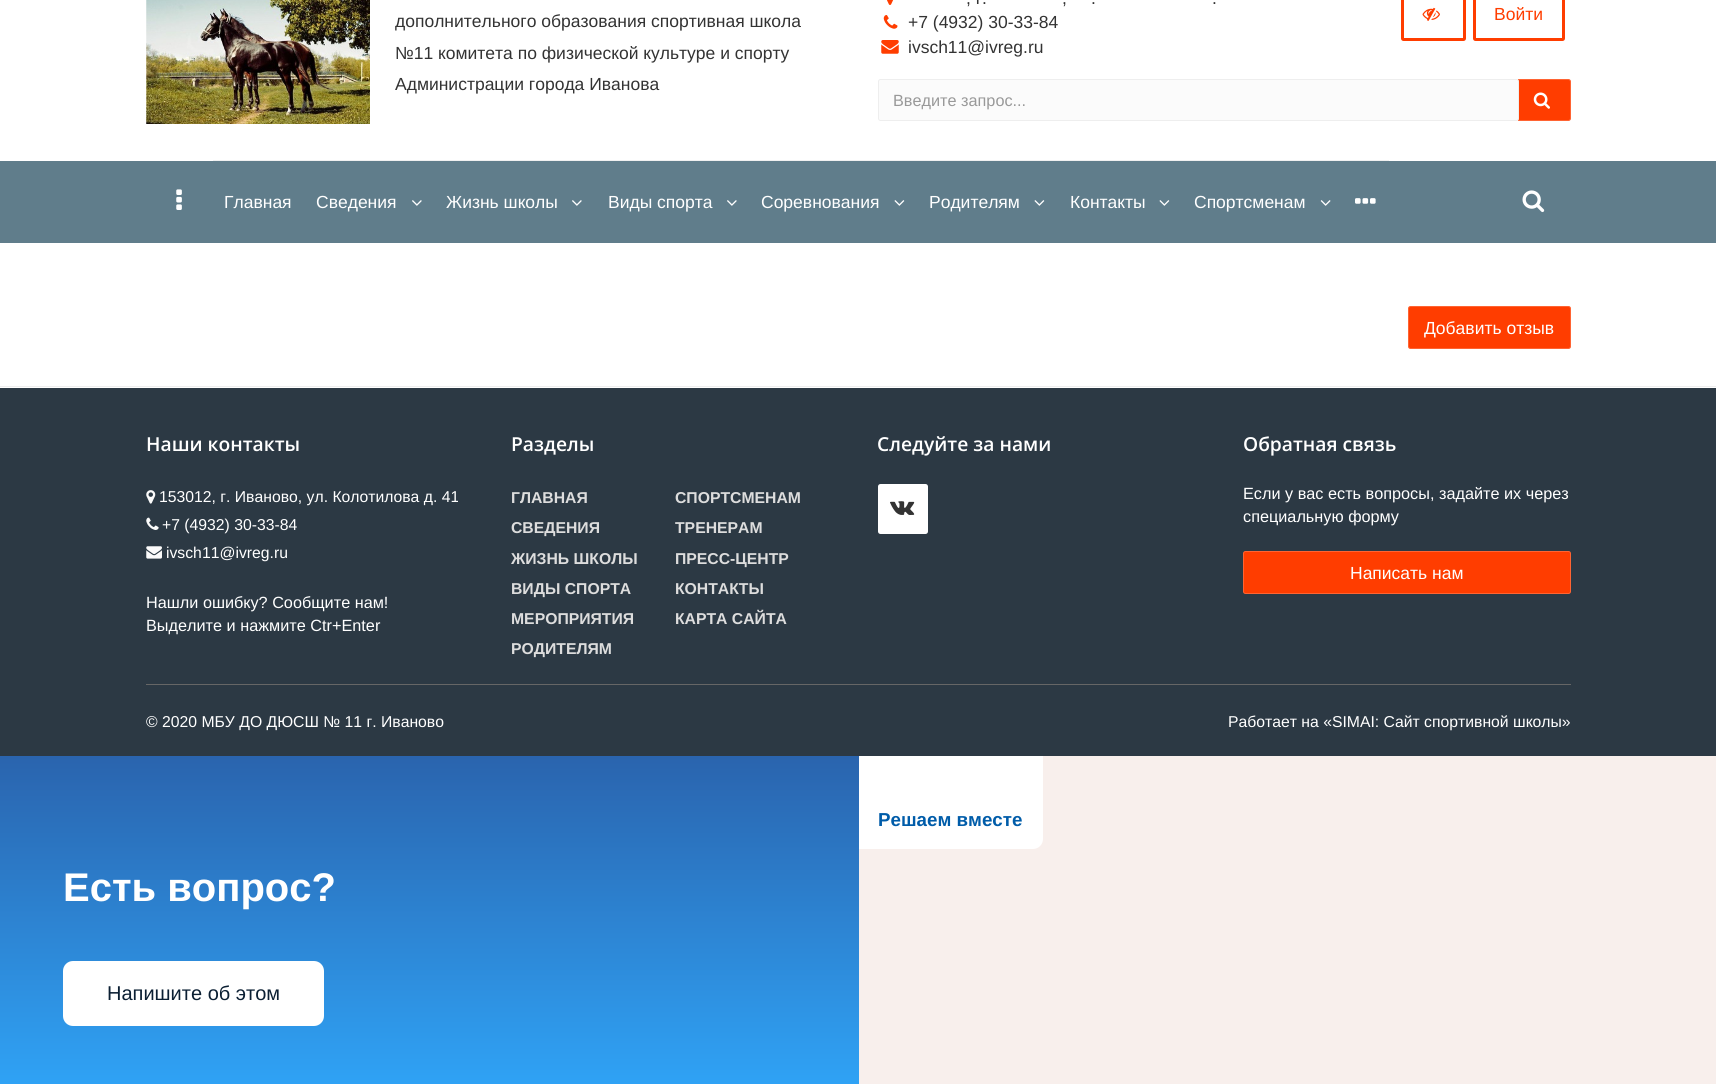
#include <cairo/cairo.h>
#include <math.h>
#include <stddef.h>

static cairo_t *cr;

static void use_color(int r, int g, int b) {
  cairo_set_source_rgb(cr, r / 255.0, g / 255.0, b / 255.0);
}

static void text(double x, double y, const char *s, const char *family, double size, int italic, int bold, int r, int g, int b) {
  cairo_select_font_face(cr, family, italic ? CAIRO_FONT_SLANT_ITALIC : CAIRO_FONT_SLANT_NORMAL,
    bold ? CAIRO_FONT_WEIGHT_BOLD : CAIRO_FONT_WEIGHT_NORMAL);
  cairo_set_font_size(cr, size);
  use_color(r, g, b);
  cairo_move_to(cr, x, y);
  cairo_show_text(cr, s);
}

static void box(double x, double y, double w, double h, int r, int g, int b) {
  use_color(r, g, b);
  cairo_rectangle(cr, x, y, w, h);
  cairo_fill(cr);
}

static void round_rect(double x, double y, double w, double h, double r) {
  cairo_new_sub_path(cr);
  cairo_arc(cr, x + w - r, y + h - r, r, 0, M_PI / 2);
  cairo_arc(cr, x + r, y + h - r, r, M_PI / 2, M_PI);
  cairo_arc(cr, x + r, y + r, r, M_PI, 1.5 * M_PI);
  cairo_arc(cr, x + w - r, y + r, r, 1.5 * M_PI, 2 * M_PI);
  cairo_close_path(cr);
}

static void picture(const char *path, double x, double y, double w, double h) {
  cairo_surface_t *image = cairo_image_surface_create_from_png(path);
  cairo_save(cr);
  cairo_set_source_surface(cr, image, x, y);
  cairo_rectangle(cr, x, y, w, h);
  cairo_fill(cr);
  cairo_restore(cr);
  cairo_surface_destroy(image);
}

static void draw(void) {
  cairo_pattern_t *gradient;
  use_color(255, 255, 255);
  cairo_paint(cr);
  picture("img_01.png", 146, 0, 224, 124);
  picture("img_02.png", 887, 0, 7, 5);
  picture("img_03.png", 883, 15, 15, 14);
  picture("img_04.png", 881, 40, 18, 14);
  round_rect(1402.5, -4.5, 62, 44, 1);
  use_color(255, 61, 0);
  cairo_set_line_width(cr, 3);
  cairo_stroke(cr);
  picture("img_05.png", 1422, 7, 18, 14);
  round_rect(1474.5, -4.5, 89, 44, 1);
  cairo_stroke(cr);
  cairo_new_path(cr);
  cairo_move_to(cr, 1518.5, 79.5);
  cairo_line_to(cr, 1568.5, 79.5);
  cairo_curve_to(cr, 1569.5, 79.5, 1570.5, 80.5, 1570.5, 81.5);
  cairo_line_to(cr, 1570.5, 118.5);
  cairo_curve_to(cr, 1570.5, 119.5, 1569.5, 120.5, 1568.5, 120.5);
  cairo_line_to(cr, 1518.5, 120.5);
  cairo_close_path(cr);
  cairo_fill_preserve(cr);
  use_color(255, 100, 51);
  cairo_set_line_width(cr, 1);
  cairo_stroke(cr);
  use_color(251, 251, 251);
  round_rect(878.5, 79.5, 640, 41, 2);
  cairo_fill_preserve(cr);
  use_color(238, 238, 238);
  cairo_stroke(cr);
  picture("img_06.png", 1533, 92, 17, 17);
  box(0, 161, 1716, 82, 96, 125, 139);
  picture("img_07.png", 176, 189, 6, 21);
  box(213, 160, 1176, 1, 240, 240, 240);
  picture("img_08.png", 412, 200, 10, 6);
  picture("img_08.png", 572, 200, 10, 6);
  picture("img_08.png", 727, 200, 10, 6);
  picture("img_09.png", 894, 200, 11, 6);
  picture("img_09.png", 1034, 200, 11, 6);
  picture("img_09.png", 1159, 200, 11, 6);
  picture("img_10.png", 1320, 200, 11, 6);
  picture("img_11.png", 1355, 198, 21, 6);
  picture("img_12.png", 1522, 190, 23, 23);
  box(0, 386, 1716, 1, 238, 238, 238);
  use_color(255, 61, 0);
  round_rect(1408.5, 306.5, 162, 42, 2);
  cairo_fill_preserve(cr);
  use_color(255, 100, 51);
  cairo_stroke(cr);
  box(0, 388, 1716, 368, 44, 57, 68);
  picture("img_13.png", 146, 490, 10, 14);
  picture("img_14.png", 146, 517, 13, 13);
  picture("img_15.png", 146, 546, 16, 13);
  use_color(255, 255, 255);
  round_rect(878, 484, 50, 50, 2.5);
  cairo_fill(cr);
  picture("img_16.png", 890, 501, 25, 14);
  use_color(255, 61, 0);
  round_rect(1243.5, 551.5, 327, 42, 2);
  cairo_fill_preserve(cr);
  use_color(255, 100, 51);
  cairo_stroke(cr);
  box(146, 684, 1425, 1, 102, 102, 102);
  gradient = cairo_pattern_create_linear(858, 756, 858, 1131);
  cairo_pattern_add_color_stop_rgba(gradient, 0, 0.165, 0.392, 0.682, 1);
  cairo_pattern_add_color_stop_rgba(gradient, 1, 0.188, 0.671, 1, 1);
  cairo_set_source(cr, gradient);
  cairo_pattern_destroy(gradient);
  cairo_rectangle(cr, 0, 756, 859, 328);
  cairo_fill(cr);
  box(859, 756, 857, 328, 248, 239, 236);
  use_color(255, 255, 255);
  cairo_new_path(cr);
  cairo_move_to(cr, 859, 756);
  cairo_line_to(cr, 1043, 756);
  cairo_line_to(cr, 1043, 839);
  cairo_curve_to(cr, 1043, 844.5, 1038.5, 849, 1033, 849);
  cairo_line_to(cr, 859, 849);
  cairo_close_path(cr);
  cairo_fill(cr);
  round_rect(63, 961, 261, 65, 10);
  cairo_fill(cr);
  text(395, 27, "дополнительного образования спортивная школа", "Liberation Sans", 17.5, 0, 0, 51, 51, 51);
  text(395, 59, "№11 комитета по физической культуре и спорту", "Liberation Sans", 17.5, 0, 0, 51, 51, 51);
  text(395, 90, "Администрации города Иванова", "Liberation Sans", 17.5, 0, 0, 51, 51, 51);
  text(966, 4, ", г.", "Liberation Sans", 17.5, 0, 0, 51, 51, 51);
  text(1062, 4, ",", "Liberation Sans", 17.5, 0, 0, 51, 51, 51);
  text(1091, 4, ".", "Liberation Sans", 17.5, 0, 0, 51, 51, 51);
  text(1212, 4, ".", "Liberation Sans", 17.5, 0, 0, 51, 51, 51);
  text(908, 28, "+7 (4932) 30-33-84", "Liberation Sans", 17.5, 0, 0, 51, 51, 51);
  text(908, 53, "ivsch11@ivreg.ru", "Liberation Sans", 17.5, 0, 0, 51, 51, 51);
  text(1494, 20, "Войти", "Liberation Sans", 17.5, 0, 0, 255, 61, 0);
  text(893, 106, "Введите запрос...", "Liberation Sans", 16.25, 0, 0, 153, 153, 153);
  text(224, 208, "Главная", "Liberation Sans", 17.5, 0, 0, 255, 255, 255);
  text(316, 208, "Сведения", "Liberation Sans", 17.5, 0, 0, 255, 255, 255);
  text(446, 208, "Жизнь школы", "Liberation Sans", 17.5, 0, 0, 255, 255, 255);
  text(608, 208, "Виды спорта", "Liberation Sans", 17.5, 0, 0, 255, 255, 255);
  text(761, 208, "Соревнования", "Liberation Sans", 17.5, 0, 0, 255, 255, 255);
  text(929, 208, "Родителям", "Liberation Sans", 17.5, 0, 0, 255, 255, 255);
  text(1070, 208, "Контакты", "Liberation Sans", 17.5, 0, 0, 255, 255, 255);
  text(1194, 208, "Спортсменам", "Liberation Sans", 17.5, 0, 0, 255, 255, 255);
  text(1424, 334, "Добавить отзыв", "Liberation Sans", 17.5, 0, 0, 255, 255, 255);
  text(146, 451, "Наши контакты", "Open Sans SemiBold", 19.25, 0, 0, 255, 255, 255);
  text(159, 502, "153012, г. Иваново, ул. Колотилова д. 41", "Liberation Sans", 15.75, 0, 0, 255, 255, 255);
  text(162, 530, "+7 (4932) 30-33-84", "Liberation Sans", 15.75, 0, 0, 255, 255, 255);
  text(166, 558, "ivsch11@ivreg.ru", "Liberation Sans", 15.75, 0, 0, 255, 255, 255);
  text(146, 608, "Нашли ошибку? Сообщите нам!", "Liberation Sans", 16.25, 0, 0, 255, 255, 255);
  text(146, 631, "Выделите и нажмите Ctr+Enter", "Liberation Sans", 16.25, 0, 0, 255, 255, 255);
  text(511, 451, "Разделы", "Open Sans SemiBold", 19.25, 0, 0, 255, 255, 255);
  text(511, 503, "ГЛАВНАЯ", "Liberation Sans", 15.75, 0, 1, 221, 221, 221);
  text(511, 533, "СВЕДЕНИЯ", "Liberation Sans", 15.75, 0, 1, 221, 221, 221);
  text(511, 564, "ЖИЗНЬ ШКОЛЫ", "Liberation Sans", 15.75, 0, 1, 221, 221, 221);
  text(511, 594, "ВИДЫ СПОРТА", "Liberation Sans", 15.75, 0, 1, 221, 221, 221);
  text(511, 624, "МЕРОПРИЯТИЯ", "Liberation Sans", 15.75, 0, 1, 221, 221, 221);
  text(511, 654, "РОДИТЕЛЯМ", "Liberation Sans", 15.75, 0, 1, 221, 221, 221);
  text(675, 503, "СПОРТСМЕНАМ", "Liberation Sans", 15.75, 0, 1, 221, 221, 221);
  text(675, 533, "ТРЕНЕРАМ", "Liberation Sans", 15.75, 0, 1, 221, 221, 221);
  text(675, 564, "ПРЕСС-ЦЕНТР", "Liberation Sans", 15.75, 0, 1, 221, 221, 221);
  text(675, 594, "КОНТАКТЫ", "Liberation Sans", 15.75, 0, 1, 221, 221, 221);
  text(675, 624, "КАРТА САЙТА", "Liberation Sans", 15.75, 0, 1, 221, 221, 221);
  text(877, 451, "Следуйте за нами", "Open Sans SemiBold", 19.25, 0, 0, 255, 255, 255);
  text(1243, 451, "Обратная связь", "Open Sans SemiBold", 19.25, 0, 0, 255, 255, 255);
  text(1243, 499, "Если у вас есть вопросы, задайте их через", "Liberation Sans", 16.25, 0, 0, 255, 255, 255);
  text(1243, 522, "специальную форму", "Liberation Sans", 16.25, 0, 0, 255, 255, 255);
  text(1350, 579, "Написать нам", "Liberation Sans", 17.5, 0, 0, 255, 255, 255);
  text(146, 727, "© 2020 МБУ ДО ДЮСШ № 11 г. Иваново", "Liberation Sans", 15.75, 0, 0, 255, 255, 255);
  text(1228, 727, "Работает на «SIMAI: Сайт спортивной школы»", "Liberation Sans", 15.75, 0, 0, 255, 255, 255);
  text(878, 826, "Решаем вместе", "Liberation Sans", 18.75, 0, 1, 0, 92, 169);
  text(63, 901, "Есть вопрос?", "Liberation Sans", 40, 0, 1, 255, 255, 255);
  text(107, 1000, "Напишите об этом", "Liberation Sans", 20, 0, 0, 11, 31, 51);
}

int main(void) {
  cairo_surface_t *surface = cairo_image_surface_create(CAIRO_FORMAT_RGB24, 1716, 1084);
  cr = cairo_create(surface);
  cairo_font_options_t *options = cairo_font_options_create();
  cairo_font_options_set_hint_metrics(options, CAIRO_HINT_METRICS_OFF);
  cairo_font_options_set_hint_style(options, CAIRO_HINT_STYLE_NONE);
  cairo_set_font_options(cr, options);
  cairo_set_miter_limit(cr, 4);
  draw();
  cairo_surface_write_to_png(surface, "out.png");
  cairo_font_options_destroy(options);
  cairo_destroy(cr);
  cairo_surface_destroy(surface);
  return 0;
}
